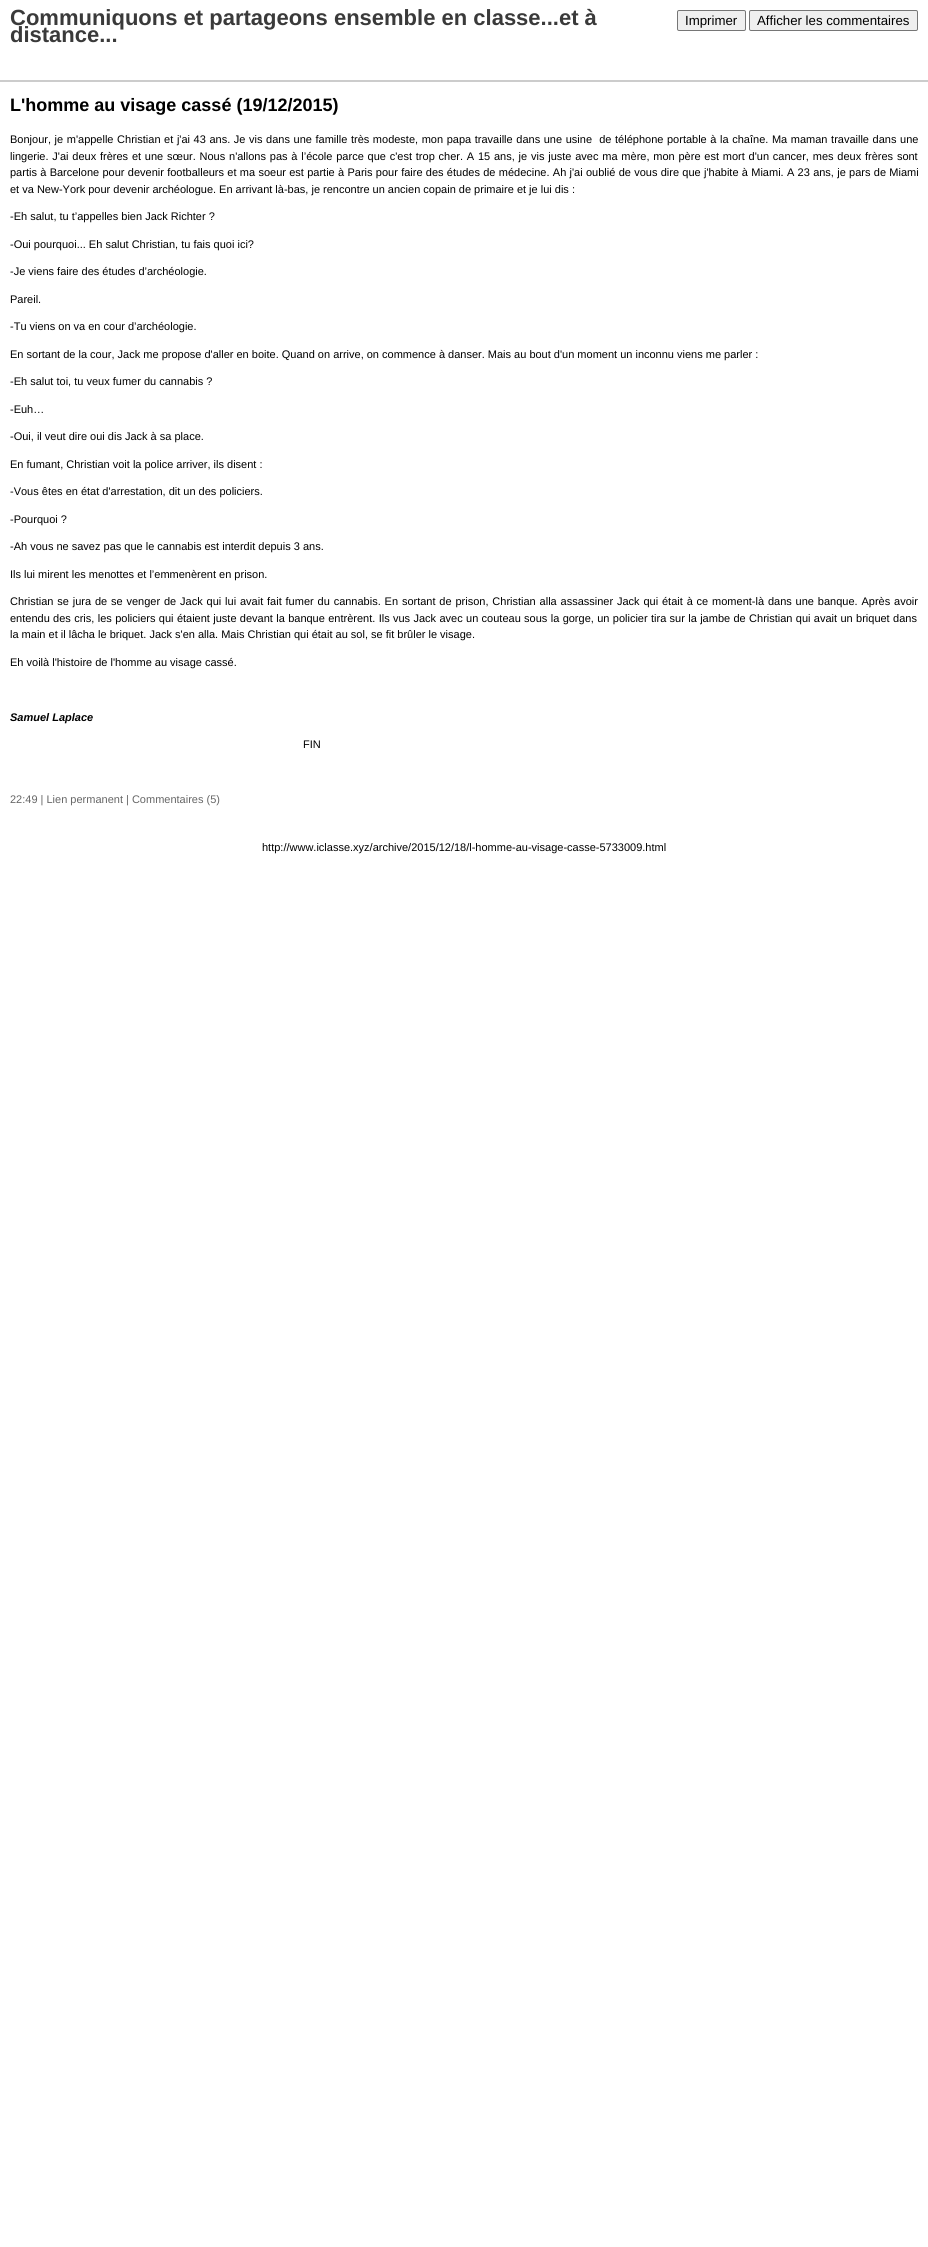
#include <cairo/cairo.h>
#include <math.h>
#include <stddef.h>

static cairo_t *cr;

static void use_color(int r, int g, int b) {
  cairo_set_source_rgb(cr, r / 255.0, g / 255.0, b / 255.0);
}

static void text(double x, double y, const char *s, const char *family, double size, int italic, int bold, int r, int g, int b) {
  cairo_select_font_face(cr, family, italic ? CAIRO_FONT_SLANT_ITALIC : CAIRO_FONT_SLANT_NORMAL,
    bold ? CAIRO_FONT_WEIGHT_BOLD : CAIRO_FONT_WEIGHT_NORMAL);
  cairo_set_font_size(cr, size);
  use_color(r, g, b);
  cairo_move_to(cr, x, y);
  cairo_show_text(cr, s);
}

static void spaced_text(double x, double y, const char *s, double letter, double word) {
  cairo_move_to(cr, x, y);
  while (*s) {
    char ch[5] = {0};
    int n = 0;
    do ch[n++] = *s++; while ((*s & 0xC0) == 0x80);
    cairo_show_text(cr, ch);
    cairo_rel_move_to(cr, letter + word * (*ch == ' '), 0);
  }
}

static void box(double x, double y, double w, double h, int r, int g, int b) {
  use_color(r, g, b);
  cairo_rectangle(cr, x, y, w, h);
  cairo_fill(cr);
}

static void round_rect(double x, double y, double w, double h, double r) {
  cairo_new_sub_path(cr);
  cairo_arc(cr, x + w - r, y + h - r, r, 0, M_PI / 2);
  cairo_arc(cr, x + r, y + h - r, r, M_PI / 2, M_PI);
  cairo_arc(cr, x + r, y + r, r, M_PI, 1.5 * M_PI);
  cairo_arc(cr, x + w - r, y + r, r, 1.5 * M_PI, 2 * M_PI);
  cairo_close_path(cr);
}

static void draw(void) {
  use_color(255, 255, 255);
  cairo_paint(cr);
  box(0, 80, 928, 2, 204, 204, 204);
  use_color(239, 239, 239);
  round_rect(677.5, 10.5, 68, 20, 1.5);
  cairo_fill_preserve(cr);
  use_color(118, 118, 118);
  cairo_set_line_width(cr, 1);
  cairo_stroke(cr);
  use_color(239, 239, 239);
  round_rect(749.5, 10.5, 168, 20, 1.5);
  cairo_fill_preserve(cr);
  use_color(118, 118, 118);
  cairo_stroke(cr);
  text(10, 25, "Communiquons et partageons ensemble en classe...et à", "Liberation Sans", 22, 0, 1, 58, 58, 58);
  text(10, 42, "distance...", "Liberation Sans", 22, 0, 1, 58, 58, 58);
  text(685, 25, "Imprimer", "Liberation Sans", 13.25, 0, 0, 0, 0, 0);
  text(757, 25, "Afficher les commentaires", "Liberation Sans", 13.25, 0, 0, 0, 0, 0);
  text(10, 111, "L'homme au visage cassé (19/12/2015)", "Liberation Sans", 18, 0, 1, 0, 0, 0);
  cairo_select_font_face(cr, "Liberation Sans", CAIRO_FONT_SLANT_NORMAL, CAIRO_FONT_WEIGHT_NORMAL);
  cairo_set_font_size(cr, 11);
  spaced_text(10, 143, "Bonjour, je m'appelle Christian et j'ai 43 ans. Je vis dans une famille très modeste, mon papa travaille dans une usine  de téléphone portable à la chaîne. Ma maman travaille dans une", 0, 0.55);
  spaced_text(10, 160, "lingerie. J'ai deux frères et une sœur. Nous n'allons pas à l’école parce que c'est trop cher. A 15 ans, je vis juste avec ma mère, mon père est mort d'un cancer, mes deux frères sont", 0, 0.75);
  spaced_text(10, 176, "partis à Barcelone pour devenir footballeurs et ma soeur est partie à Paris pour faire des études de médecine. Ah j'ai oublié de vous dire que j'habite à Miami. A 23 ans, je pars de Miami", 0, 0.25);
  text(10, 193, "et va New-York pour devenir archéologue. En arrivant là-bas, je rencontre un ancien copain de primaire et je lui dis :", "Liberation Sans", 11, 0, 0, 0, 0, 0);
  text(10, 220, "-Eh salut, tu t’appelles bien Jack Richter ?", "Liberation Sans", 11, 0, 0, 0, 0, 0);
  text(10, 248, "-Oui pourquoi... Eh salut Christian, tu fais quoi ici?", "Liberation Sans", 11, 0, 0, 0, 0, 0);
  text(10, 275, "-Je viens faire des études d’archéologie.", "Liberation Sans", 11, 0, 0, 0, 0, 0);
  text(10, 303, "Pareil.", "Liberation Sans", 11, 0, 0, 0, 0, 0);
  text(10, 330, "-Tu viens on va en cour d’archéologie.", "Liberation Sans", 11, 0, 0, 0, 0, 0);
  text(10, 358, "En sortant de la cour, Jack me propose d'aller en boite. Quand on arrive, on commence à danser. Mais au bout d'un moment un inconnu viens me parler :", "Liberation Sans", 11, 0, 0, 0, 0, 0);
  text(10, 385, "-Eh salut toi, tu veux fumer du cannabis ?", "Liberation Sans", 11, 0, 0, 0, 0, 0);
  text(10, 413, "-Euh…", "Liberation Sans", 11, 0, 0, 0, 0, 0);
  text(10, 440, "-Oui, il veut dire oui dis Jack à sa place.", "Liberation Sans", 11, 0, 0, 0, 0, 0);
  text(10, 468, "En fumant, Christian voit la police arriver, ils disent :", "Liberation Sans", 11, 0, 0, 0, 0, 0);
  text(10, 495, "-Vous êtes en état d'arrestation, dit un des policiers.", "Liberation Sans", 11, 0, 0, 0, 0, 0);
  text(10, 523, "-Pourquoi ?", "Liberation Sans", 11, 0, 0, 0, 0, 0);
  text(10, 550, "-Ah vous ne savez pas que le cannabis est interdit depuis 3 ans.", "Liberation Sans", 11, 0, 0, 0, 0, 0);
  text(10, 578, "Ils lui mirent les menottes et l’emmenèrent en prison.", "Liberation Sans", 11, 0, 0, 0, 0, 0);
  spaced_text(10, 605, "Christian se jura de se venger de Jack qui lui avait fait fumer du cannabis. En sortant de prison, Christian alla assassiner Jack qui était à ce moment-là dans une banque. Après avoir", 0, 0.8);
  spaced_text(10, 622, "entendu des cris, les policiers qui étaient juste devant la banque entrèrent. Ils vus Jack avec un couteau sous la gorge, un policier tira sur la jambe de Christian qui avait un briquet dans", 0, 0.3);
  text(10, 638, "la main et il lâcha le briquet. Jack s'en alla. Mais Christian qui était au sol, se fit brûler le visage.", "Liberation Sans", 11, 0, 0, 0, 0, 0);
  text(10, 666, "Eh voilà l'histoire de l'homme au visage cassé.", "Liberation Sans", 11, 0, 0, 0, 0, 0);
  text(10, 721, "Samuel Laplace", "Liberation Sans", 11, 1, 1, 0, 0, 0);
  text(303, 748, "FIN", "Liberation Sans", 11, 0, 0, 0, 0, 0);
  text(10, 803, "22:49 | Lien permanent | Commentaires (5)", "Liberation Sans", 11, 0, 0, 102, 102, 102);
  text(262, 851, "http://www.iclasse.xyz/archive/2015/12/18/l-homme-au-visage-casse-5733009.html", "Liberation Sans", 11, 0, 0, 0, 0, 0);
}

int main(void) {
  cairo_surface_t *surface = cairo_image_surface_create(CAIRO_FORMAT_RGB24, 928, 2247);
  cr = cairo_create(surface);
  cairo_font_options_t *options = cairo_font_options_create();
  cairo_font_options_set_hint_metrics(options, CAIRO_HINT_METRICS_OFF);
  cairo_font_options_set_hint_style(options, CAIRO_HINT_STYLE_NONE);
  cairo_set_font_options(cr, options);
  cairo_set_miter_limit(cr, 4);
  draw();
  cairo_surface_write_to_png(surface, "out.png");
  cairo_font_options_destroy(options);
  cairo_destroy(cr);
  cairo_surface_destroy(surface);
  return 0;
}
